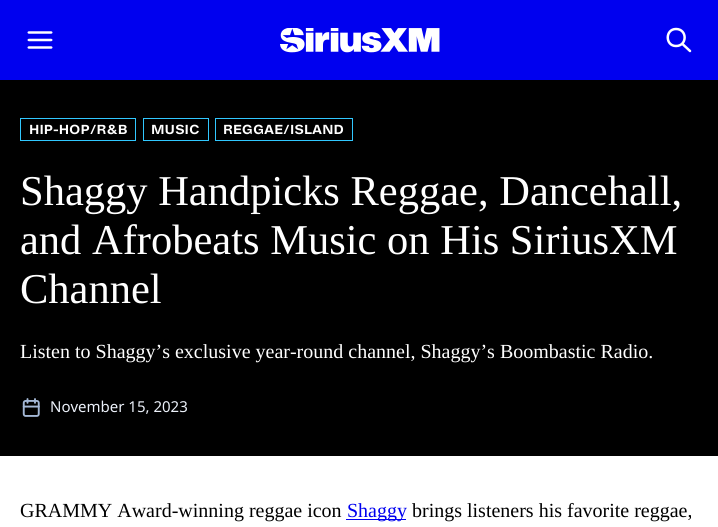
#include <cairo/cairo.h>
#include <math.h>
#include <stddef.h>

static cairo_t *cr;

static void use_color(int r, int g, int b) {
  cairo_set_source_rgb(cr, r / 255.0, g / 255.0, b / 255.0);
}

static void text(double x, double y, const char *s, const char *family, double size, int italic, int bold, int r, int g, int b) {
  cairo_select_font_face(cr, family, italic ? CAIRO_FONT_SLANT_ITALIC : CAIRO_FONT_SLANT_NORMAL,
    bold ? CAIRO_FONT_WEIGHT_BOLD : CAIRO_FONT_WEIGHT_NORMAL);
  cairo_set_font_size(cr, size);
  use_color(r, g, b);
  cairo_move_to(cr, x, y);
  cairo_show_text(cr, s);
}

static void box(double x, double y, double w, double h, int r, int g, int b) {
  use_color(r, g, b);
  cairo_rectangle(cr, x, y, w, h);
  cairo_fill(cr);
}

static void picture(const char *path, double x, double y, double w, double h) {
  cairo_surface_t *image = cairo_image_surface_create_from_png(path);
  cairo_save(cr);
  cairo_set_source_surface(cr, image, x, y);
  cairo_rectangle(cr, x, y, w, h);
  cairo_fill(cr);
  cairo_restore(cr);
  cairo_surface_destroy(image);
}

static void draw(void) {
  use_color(255, 255, 255);
  cairo_paint(cr);
  box(0, 0, 718, 80, 0, 0, 239);
  picture("img_01.png", 27, 31, 26, 18);
  picture("img_02.png", 280, 28, 160, 25);
  cairo_new_path(cr);
  cairo_move_to(cr, 676, 46);
  cairo_curve_to(cr, 687.5, 46, 687.5, 29, 676, 29);
  cairo_curve_to(cr, 665, 29, 665, 46, 676, 46);
  cairo_close_path(cr);
  cairo_move_to(cr, 690, 51);
  cairo_line_to(cr, 682.5, 44);
  use_color(255, 255, 255);
  cairo_set_line_width(cr, 2.5);
  cairo_set_line_cap(cr, CAIRO_LINE_CAP_ROUND);
  cairo_set_line_join(cr, CAIRO_LINE_JOIN_ROUND);
  cairo_stroke(cr);
  box(0, 80, 718, 376, 0, 0, 0);
  cairo_rectangle(cr, 20.5, 118.5, 115, 22);
  use_color(49, 200, 255);
  cairo_set_line_width(cr, 1);
  cairo_set_line_cap(cr, CAIRO_LINE_CAP_BUTT);
  cairo_set_line_join(cr, CAIRO_LINE_JOIN_MITER);
  cairo_stroke(cr);
  cairo_rectangle(cr, 143.5, 118.5, 65, 22);
  cairo_stroke(cr);
  cairo_rectangle(cr, 215.5, 118.5, 137, 22);
  cairo_stroke(cr);
  picture("img_03.png", 22, 398, 18, 19);
  box(346, 519, 60, 1, 0, 0, 239);
  text(29, 134, "HIP-HOP/R&B", "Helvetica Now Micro", 12.5, 0, 1, 255, 255, 255);
  text(151, 134, "MUSIC", "Helvetica Now Micro", 12.5, 0, 1, 255, 255, 255);
  text(223, 134, "REGGAE/ISLAND", "Helvetica Now Micro", 12.5, 0, 1, 255, 255, 255);
  text(20, 205, "Shaggy Handpicks Reggae, Dancehall,", "Liberation Serif", 42.5, 0, 0, 255, 255, 255);
  text(20, 254, "and Afrobeats Music on His SiriusXM", "Liberation Serif", 42.5, 0, 0, 255, 255, 255);
  text(20, 303, "Channel", "Liberation Serif", 42.5, 0, 0, 255, 255, 255);
  text(20, 358, "Listen to Shaggy’s exclusive year-round channel, Shaggy’s Boombastic Radio.", "Liberation Serif", 20, 0, 0, 255, 255, 255);
  text(50, 412, "November 15, 2023", "Noto Sans", 15, 0, 0, 236, 241, 250);
  text(20, 517, "GRAMMY Award-winning reggae icon", "Liberation Serif", 20, 0, 0, 0, 0, 0);
  text(347, 517, "Shaggy", "Liberation Serif", 20, 0, 0, 0, 0, 239);
  text(412, 517, "brings listeners his favorite reggae,", "Liberation Serif", 20, 0, 0, 0, 0, 0);
}

int main(void) {
  cairo_surface_t *surface = cairo_image_surface_create(CAIRO_FORMAT_RGB24, 718, 527);
  cr = cairo_create(surface);
  cairo_font_options_t *options = cairo_font_options_create();
  cairo_font_options_set_hint_metrics(options, CAIRO_HINT_METRICS_OFF);
  cairo_font_options_set_hint_style(options, CAIRO_HINT_STYLE_NONE);
  cairo_set_font_options(cr, options);
  cairo_set_miter_limit(cr, 4);
  draw();
  cairo_surface_write_to_png(surface, "out.png");
  cairo_font_options_destroy(options);
  cairo_destroy(cr);
  cairo_surface_destroy(surface);
  return 0;
}
